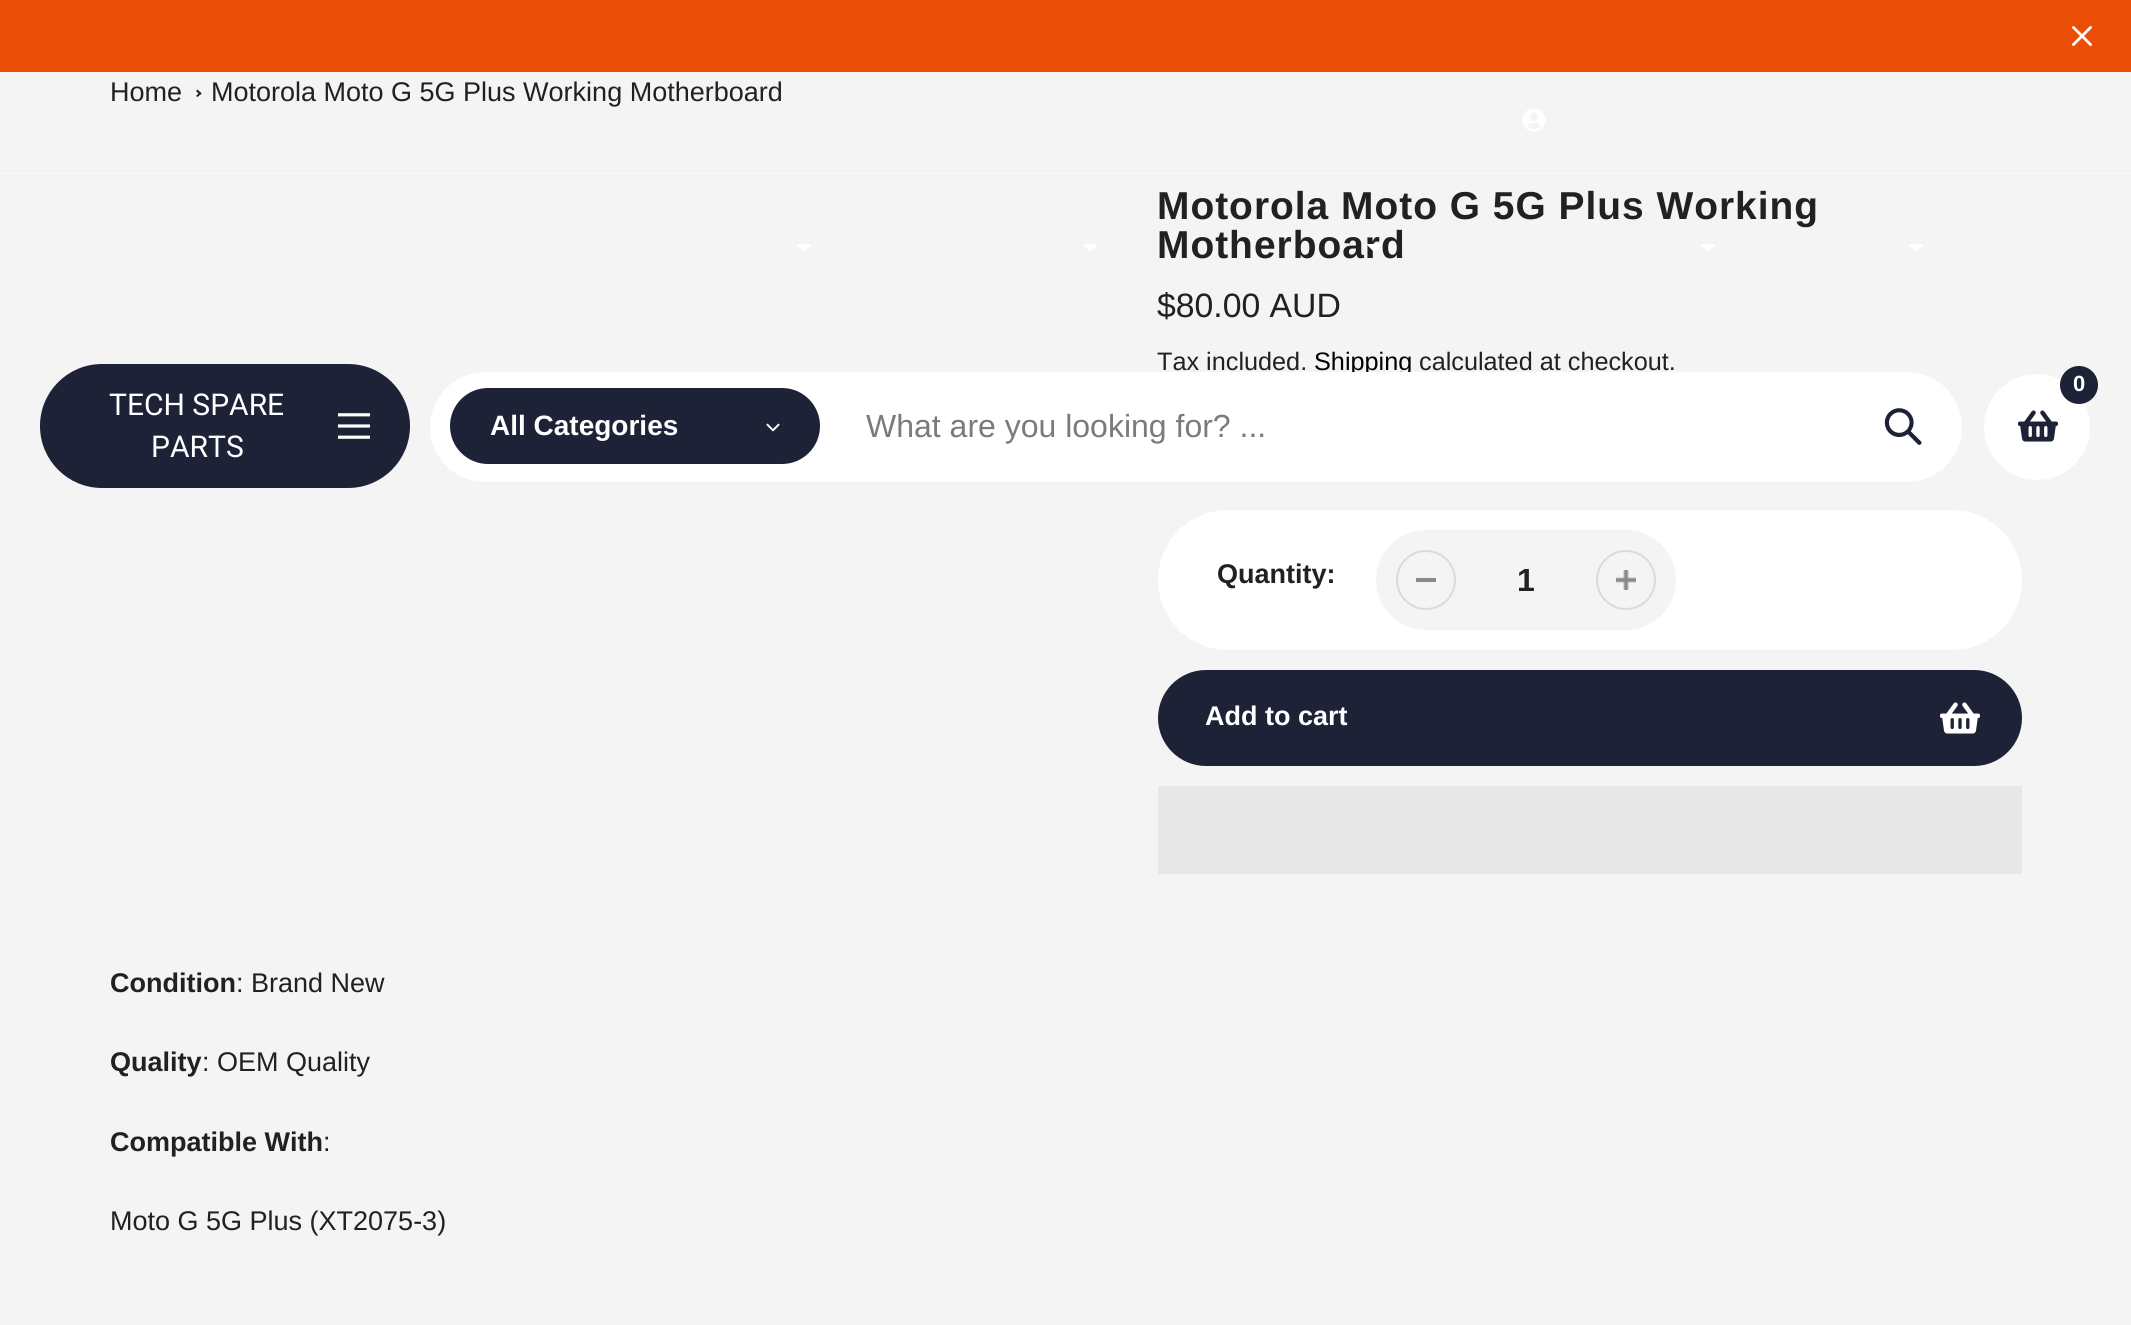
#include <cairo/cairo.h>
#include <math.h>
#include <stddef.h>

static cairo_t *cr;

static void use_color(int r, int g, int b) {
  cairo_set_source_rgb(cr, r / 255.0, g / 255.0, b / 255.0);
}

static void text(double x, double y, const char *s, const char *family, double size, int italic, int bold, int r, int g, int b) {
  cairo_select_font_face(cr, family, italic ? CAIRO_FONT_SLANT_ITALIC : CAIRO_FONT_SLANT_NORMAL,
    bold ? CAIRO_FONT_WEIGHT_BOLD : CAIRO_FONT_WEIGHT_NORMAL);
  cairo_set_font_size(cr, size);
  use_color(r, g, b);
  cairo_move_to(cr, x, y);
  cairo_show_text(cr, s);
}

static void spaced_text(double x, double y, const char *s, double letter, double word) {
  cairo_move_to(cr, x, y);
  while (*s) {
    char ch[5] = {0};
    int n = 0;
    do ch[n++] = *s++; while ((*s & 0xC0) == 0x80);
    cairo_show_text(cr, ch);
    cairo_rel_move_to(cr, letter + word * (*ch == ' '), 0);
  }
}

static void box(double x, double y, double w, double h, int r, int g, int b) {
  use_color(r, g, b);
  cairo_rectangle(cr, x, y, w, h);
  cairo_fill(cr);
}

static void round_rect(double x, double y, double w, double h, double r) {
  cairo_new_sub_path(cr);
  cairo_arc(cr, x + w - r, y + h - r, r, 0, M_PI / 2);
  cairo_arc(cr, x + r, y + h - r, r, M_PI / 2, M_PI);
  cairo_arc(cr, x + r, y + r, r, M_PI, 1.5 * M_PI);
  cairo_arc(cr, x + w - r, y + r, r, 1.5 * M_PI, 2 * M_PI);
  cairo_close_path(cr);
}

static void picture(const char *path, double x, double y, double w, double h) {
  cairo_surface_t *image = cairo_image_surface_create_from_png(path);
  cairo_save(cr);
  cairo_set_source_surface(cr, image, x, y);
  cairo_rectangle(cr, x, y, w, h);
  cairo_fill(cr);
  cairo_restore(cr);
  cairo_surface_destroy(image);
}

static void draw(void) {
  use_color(244, 244, 244);
  cairo_paint(cr);
  box(0, 0, 2131, 72, 234, 77, 6);
  picture("img_01.png", 2072, 26, 20, 20);
  use_color(33, 33, 33);
  cairo_new_path(cr);
  cairo_move_to(cr, 197.5, 89.5);
  cairo_line_to(cr, 201.5, 93.5);
  cairo_line_to(cr, 200, 95);
  cairo_line_to(cr, 196, 91);
  cairo_close_path(cr);
  cairo_fill(cr);
  cairo_new_path(cr);
  cairo_move_to(cr, 200, 92);
  cairo_line_to(cr, 201.5, 93.5);
  cairo_line_to(cr, 197.5, 97);
  cairo_line_to(cr, 196, 96);
  cairo_close_path(cr);
  cairo_fill(cr);
  use_color(255, 255, 255);
  round_rect(1158, 510, 864, 140, 70);
  cairo_fill(cr);
  use_color(244, 244, 244);
  round_rect(1376, 530, 300, 100, 50);
  cairo_fill(cr);
  box(1416, 578, 20, 4, 137, 137, 137);
  cairo_arc(cr, 1426, 580, 29, 0, 2 * M_PI);
  use_color(215, 219, 219);
  cairo_stroke(cr);
  picture("img_02.png", 1616, 570, 20, 20);
  cairo_arc(cr, 1626, 580, 29, 0, 2 * M_PI);
  cairo_stroke(cr);
  use_color(29, 34, 54);
  round_rect(1158, 670, 864, 96, 48);
  cairo_fill(cr);
  picture("img_03.png", 1940, 702, 40, 32);
  box(1158, 786, 864, 88, 231, 231, 231);
  box(0, 172, 2131, 2, 247, 247, 247);
  picture("img_04.png", 1522, 108, 24, 24);
  use_color(255, 255, 255);
  cairo_new_path(cr);
  cairo_move_to(cr, 812, 244);
  cairo_line_to(cr, 804, 252);
  cairo_line_to(cr, 796, 244);
  cairo_fill(cr);
  cairo_new_path(cr);
  cairo_move_to(cr, 1098, 244);
  cairo_line_to(cr, 1090, 252);
  cairo_line_to(cr, 1082, 244);
  cairo_fill(cr);
  cairo_new_path(cr);
  cairo_move_to(cr, 1716, 244);
  cairo_line_to(cr, 1708, 252);
  cairo_line_to(cr, 1700, 244);
  cairo_fill(cr);
  cairo_new_path(cr);
  cairo_move_to(cr, 1924, 244);
  cairo_line_to(cr, 1916, 252);
  cairo_line_to(cr, 1908, 244);
  cairo_fill(cr);
  use_color(29, 34, 54);
  round_rect(40, 364, 370, 124, 62);
  cairo_fill(cr);
  picture("img_05.png", 338, 413, 32, 26);
  use_color(255, 255, 255);
  cairo_arc(cr, 2037, 427, 53, 0, 2 * M_PI);
  cairo_fill(cr);
  use_color(29, 34, 54);
  cairo_arc(cr, 2079, 385, 19, 0, 2 * M_PI);
  cairo_fill(cr);
  picture("img_06.png", 2018, 410, 40, 32);
  text(110, 101, "Home", "Arimo", 27, 0, 0, 33, 33, 33);
  text(211, 101, "Motorola Moto G 5G Plus Working Motherboard", "Arimo", 27, 0, 0, 33, 33, 33);
  cairo_select_font_face(cr, "Arimo", CAIRO_FONT_SLANT_NORMAL, CAIRO_FONT_WEIGHT_BOLD);
  cairo_set_font_size(cr, 38.9);
  spaced_text(1157, 219, "Motorola Moto G 5G Plus Working", 1, 0);
  spaced_text(1157, 258, "Motherboard", 1, 0);
  text(1157, 317, "$80.00 AUD", "Arimo", 33.75, 0, 0, 33, 33, 33);
  text(1157, 370, "Tax included.", "Arimo", 25.25, 0, 0, 33, 33, 33);
  text(1314, 370, "Shipping", "Arimo", 25.25, 0, 0, 0, 0, 0);
  text(1419, 370, "calculated at checkout.", "Arimo", 25.25, 0, 0, 33, 33, 33);
  text(1217, 583, "Quantity:", "Arimo", 27, 0, 1, 33, 33, 33);
  text(1517, 591, "1", "Arimo", 32, 0, 1, 33, 33, 33);
  text(1205, 725, "Add to cart", "Arimo", 27, 0, 1, 255, 255, 255);
  text(110, 992, "Condition", "Arimo", 27, 0, 1, 33, 33, 33);
  text(236, 992, ": Brand New", "Arimo", 27, 0, 0, 33, 33, 33);
  text(110, 1071, "Quality", "Arimo", 27, 0, 1, 33, 33, 33);
  text(202, 1071, ": OEM Quality", "Arimo", 27, 0, 0, 33, 33, 33);
  text(110, 1151, "Compatible With", "Arimo", 27, 0, 1, 33, 33, 33);
  text(323, 1151, ":", "Arimo", 27, 0, 0, 33, 33, 33);
  text(110, 1230, "Moto G 5G Plus (XT2075-3)", "Arimo", 27, 0, 0, 33, 33, 33);
  use_color(255, 255, 255);
  cairo_new_path(cr);
  cairo_move_to(cr, 1382, 244);
  cairo_line_to(cr, 1374, 252);
  cairo_line_to(cr, 1366, 244);
  cairo_fill(cr);
  text(109, 415, "TECH SPARE", "Roboto", 30, 0, 0, 255, 255, 255);
  text(151, 457, "PARTS", "Roboto", 30, 0, 0, 255, 255, 255);
  text(2073, 391, "0", "Arimo", 22, 0, 1, 255, 255, 255);
  round_rect(430, 372, 1532, 110, 55);
  cairo_fill(cr);
  use_color(29, 34, 54);
  round_rect(450, 388, 370, 76, 38);
  cairo_fill(cr);
  text(490, 435, "All Categories", "Arimo", 28, 0, 1, 255, 255, 255);
  picture("img_07.png", 766, 423, 14, 9);
  text(866, 437, "What are you looking for? ...", "Arimo", 32, 0, 0, 123, 123, 123);
  picture("img_08.png", 1884, 408, 38, 37);
}

int main(void) {
  cairo_surface_t *surface = cairo_image_surface_create(CAIRO_FORMAT_RGB24, 2131, 1325);
  cr = cairo_create(surface);
  cairo_font_options_t *options = cairo_font_options_create();
  cairo_font_options_set_hint_metrics(options, CAIRO_HINT_METRICS_OFF);
  cairo_font_options_set_hint_style(options, CAIRO_HINT_STYLE_NONE);
  cairo_set_font_options(cr, options);
  cairo_set_miter_limit(cr, 4);
  draw();
  cairo_surface_write_to_png(surface, "out.png");
  cairo_font_options_destroy(options);
  cairo_destroy(cr);
  cairo_surface_destroy(surface);
  return 0;
}
